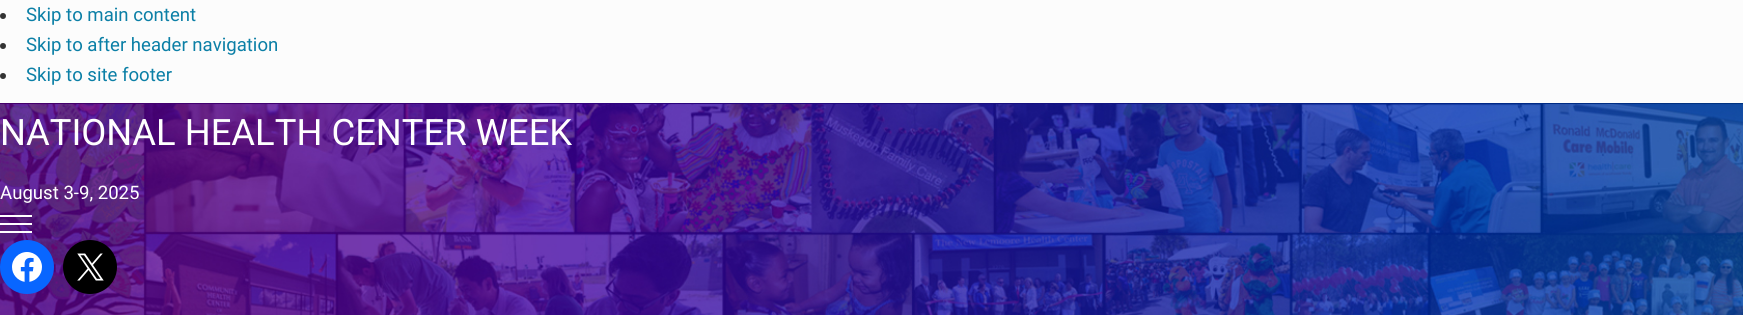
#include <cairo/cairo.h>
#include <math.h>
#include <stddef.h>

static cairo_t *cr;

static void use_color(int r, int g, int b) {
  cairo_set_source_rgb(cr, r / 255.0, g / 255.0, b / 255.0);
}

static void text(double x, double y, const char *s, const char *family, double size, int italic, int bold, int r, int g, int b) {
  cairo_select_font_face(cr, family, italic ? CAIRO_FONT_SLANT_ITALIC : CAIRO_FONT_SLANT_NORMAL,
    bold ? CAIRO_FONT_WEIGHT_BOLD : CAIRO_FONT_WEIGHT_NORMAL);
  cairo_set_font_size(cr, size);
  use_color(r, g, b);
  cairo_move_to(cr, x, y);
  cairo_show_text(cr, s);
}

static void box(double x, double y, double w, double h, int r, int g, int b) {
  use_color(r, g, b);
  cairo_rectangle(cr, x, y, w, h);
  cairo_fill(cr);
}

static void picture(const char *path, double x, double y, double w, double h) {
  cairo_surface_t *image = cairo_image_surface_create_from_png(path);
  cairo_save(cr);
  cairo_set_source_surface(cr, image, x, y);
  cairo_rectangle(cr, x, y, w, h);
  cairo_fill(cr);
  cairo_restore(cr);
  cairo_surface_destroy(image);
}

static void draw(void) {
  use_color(252, 252, 252);
  cairo_paint(cr);
  use_color(51, 51, 51);
  cairo_arc(cr, 3, 16, 3, 0, 2 * M_PI);
  cairo_fill(cr);
  cairo_arc(cr, 3, 46, 3, 0, 2 * M_PI);
  cairo_fill(cr);
  cairo_arc(cr, 3, 76, 3, 0, 2 * M_PI);
  cairo_fill(cr);
  picture("img_01.png", 0, 103, 1743, 212);
  box(0, 223, 32, 2, 255, 255, 255);
  box(0, 215, 32, 2, 255, 255, 255);
  box(0, 231, 32, 2, 255, 255, 255);
  use_color(8, 102, 255);
  cairo_arc(cr, 27, 267, 27, 0, 2 * M_PI);
  cairo_fill(cr);
  picture("img_02.png", 12, 252, 30, 30);
  use_color(0, 0, 0);
  cairo_arc(cr, 90, 267, 27, 0, 2 * M_PI);
  cairo_fill(cr);
  picture("img_03.png", 77, 253, 27, 28);
  box(0, 315, 1743, 3, 255, 255, 255);
  text(26, 21, "Skip to main content", "Roboto", 18.6, 0, 0, 11, 127, 166);
  text(26, 51, "Skip to after header navigation", "Roboto", 18.6, 0, 0, 11, 127, 166);
  text(26, 81, "Skip to site footer", "Roboto", 18.6, 0, 0, 11, 127, 166);
  text(0, 145, "NATIONAL HEALTH CENTER WEEK", "Roboto", 36.4, 0, 0, 255, 255, 255);
  text(0, 199, "August 3-9, 2025", "Roboto", 18.6, 0, 0, 255, 255, 255);
}

int main(void) {
  cairo_surface_t *surface = cairo_image_surface_create(CAIRO_FORMAT_RGB24, 1743, 318);
  cr = cairo_create(surface);
  cairo_font_options_t *options = cairo_font_options_create();
  cairo_font_options_set_hint_metrics(options, CAIRO_HINT_METRICS_OFF);
  cairo_font_options_set_hint_style(options, CAIRO_HINT_STYLE_NONE);
  cairo_set_font_options(cr, options);
  cairo_set_miter_limit(cr, 4);
  draw();
  cairo_surface_write_to_png(surface, "out.png");
  cairo_font_options_destroy(options);
  cairo_destroy(cr);
  cairo_surface_destroy(surface);
  return 0;
}
